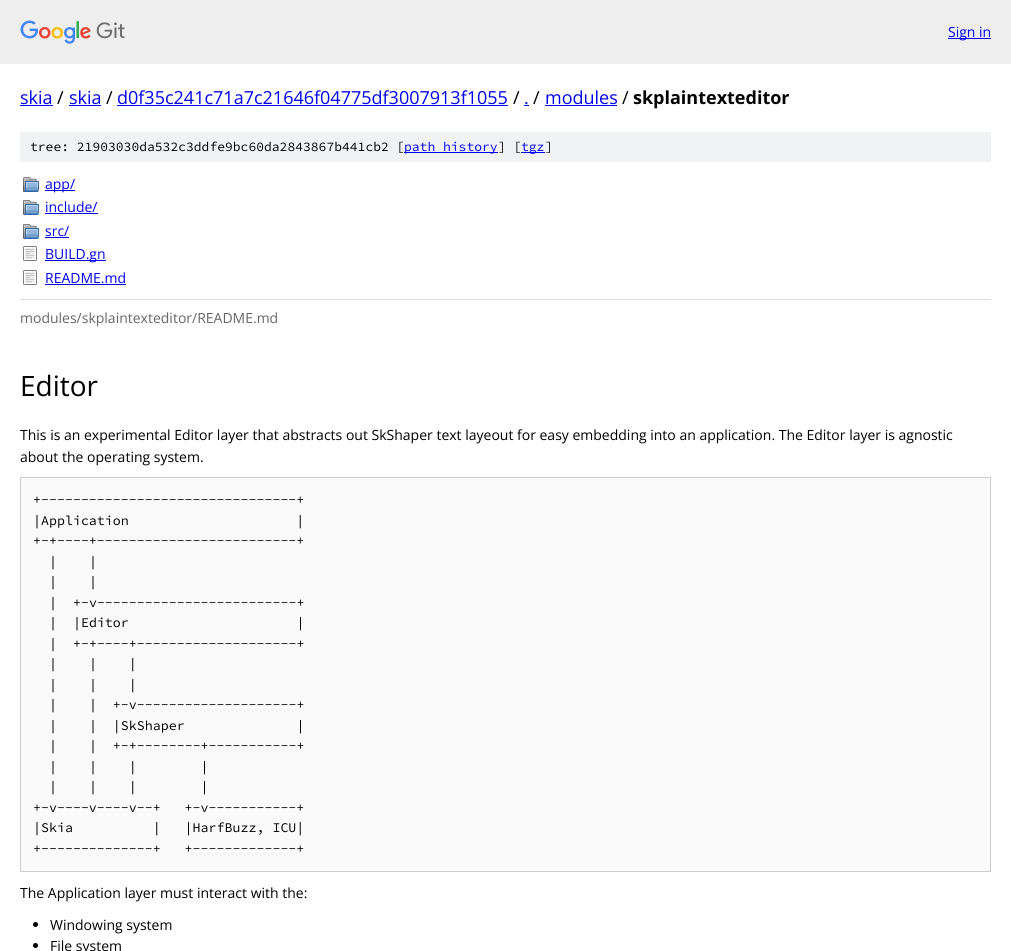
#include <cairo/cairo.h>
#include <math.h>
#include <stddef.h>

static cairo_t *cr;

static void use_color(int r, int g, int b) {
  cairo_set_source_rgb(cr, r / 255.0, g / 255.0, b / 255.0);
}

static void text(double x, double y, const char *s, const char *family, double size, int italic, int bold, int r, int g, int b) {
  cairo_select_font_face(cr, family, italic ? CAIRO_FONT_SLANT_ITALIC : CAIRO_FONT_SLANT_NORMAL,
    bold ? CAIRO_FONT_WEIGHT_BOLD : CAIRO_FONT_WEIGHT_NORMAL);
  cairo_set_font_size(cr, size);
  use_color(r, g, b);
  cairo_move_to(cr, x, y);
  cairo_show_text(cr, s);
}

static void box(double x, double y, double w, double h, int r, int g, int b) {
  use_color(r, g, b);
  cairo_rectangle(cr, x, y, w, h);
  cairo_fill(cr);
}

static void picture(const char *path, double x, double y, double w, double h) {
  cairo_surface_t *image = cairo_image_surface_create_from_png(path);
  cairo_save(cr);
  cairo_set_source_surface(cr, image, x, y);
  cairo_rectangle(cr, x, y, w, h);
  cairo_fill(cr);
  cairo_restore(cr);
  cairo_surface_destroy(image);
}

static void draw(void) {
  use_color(255, 255, 255);
  cairo_paint(cr);
  box(0, 0, 1011, 64, 238, 238, 238);
  picture("img_01.png", 20, 20, 105, 24);
  box(948, 38, 43, 1, 0, 0, 238);
  box(20, 105, 33, 1, 0, 0, 238);
  box(69, 105, 32, 1, 0, 0, 238);
  box(117, 105, 391, 1, 0, 0, 238);
  box(524, 105, 5, 1, 0, 0, 238);
  box(545, 105, 72, 1, 0, 0, 238);
  box(20, 132, 971, 30, 241, 242, 243);
  box(404, 152, 94, 1, 0, 0, 238);
  box(521, 152, 24, 1, 0, 0, 238);
  picture("img_02.png", 23, 177, 16, 15);
  box(45, 190, 30, 1, 0, 0, 238);
  picture("img_02.png", 23, 200, 16, 15);
  box(45, 213, 53, 1, 0, 0, 238);
  picture("img_02.png", 23, 224, 16, 15);
  box(45, 237, 24, 1, 0, 0, 238);
  picture("img_03.png", 23, 246, 14, 15);
  box(45, 260, 61, 1, 0, 0, 238);
  picture("img_03.png", 23, 270, 14, 15);
  box(45, 284, 81, 1, 0, 0, 238);
  box(20, 299, 971, 1, 221, 221, 221);
  use_color(250, 250, 250);
  cairo_rectangle(cr, 20.5, 477.5, 970, 394);
  cairo_fill_preserve(cr);
  use_color(204, 204, 204);
  cairo_set_line_width(cr, 1);
  cairo_stroke(cr);
  use_color(0, 0, 0);
  cairo_arc(cr, 35.5, 924.5, 2.5, 0, 2 * M_PI);
  cairo_fill(cr);
  cairo_arc(cr, 35.5, 945.5, 2.5, 0, 2 * M_PI);
  cairo_fill(cr);
  text(948, 37, "Sign in", "Open Sans", 14, 0, 0, 0, 0, 238);
  text(20, 104, "skia", "Open Sans", 18, 0, 0, 0, 0, 238);
  text(57, 104, "/", "Open Sans", 18, 0, 0, 0, 0, 0);
  text(69, 104, "skia", "Open Sans", 18, 0, 0, 0, 0, 238);
  text(106, 104, "/", "Open Sans", 18, 0, 0, 0, 0, 0);
  text(117, 104, "d0f35c241c71a7c21646f04775df3007913f1055", "Open Sans", 18, 0, 0, 0, 0, 238);
  text(513, 104, "/", "Open Sans", 18, 0, 0, 0, 0, 0);
  text(524, 104, ".", "Open Sans", 18, 0, 0, 0, 0, 238);
  text(533, 104, "/", "Open Sans", 18, 0, 0, 0, 0, 0);
  text(545, 104, "modules", "Open Sans", 18, 0, 0, 0, 0, 238);
  text(622, 104, "/", "Open Sans", 18, 0, 0, 0, 0, 0);
  text(633, 104, "skplaintexteditor", "Open Sans", 18, 0, 1, 0, 0, 0);
  text(30, 151, "tree: 21903030da532c3ddfe9bc60da2843867b441cb2 [", "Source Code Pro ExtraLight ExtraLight", 13, 0, 0, 0, 0, 0);
  text(404, 151, "path history", "Source Code Pro ExtraLight ExtraLight", 13, 0, 0, 0, 0, 238);
  text(498, 151, "] [", "Source Code Pro ExtraLight ExtraLight", 13, 0, 0, 0, 0, 0);
  text(521, 151, "tgz", "Source Code Pro ExtraLight ExtraLight", 13, 0, 0, 0, 0, 238);
  text(545, 151, "]", "Source Code Pro ExtraLight ExtraLight", 13, 0, 0, 0, 0, 0);
  text(45, 189, "app/", "Open Sans", 14, 0, 0, 0, 0, 238);
  text(45, 212, "include/", "Open Sans", 14, 0, 0, 0, 0, 238);
  text(45, 236, "src/", "Open Sans", 14, 0, 0, 0, 0, 238);
  text(45, 259, "BUILD.gn", "Open Sans", 14, 0, 0, 0, 0, 238);
  text(45, 283, "README.md", "Open Sans", 14, 0, 0, 0, 0, 238);
  text(20, 323, "modules/skplaintexteditor/README.md", "Open Sans", 14, 0, 0, 102, 102, 102);
  text(20, 396, "Editor", "Open Sans", 28, 0, 0, 0, 0, 0);
  text(20, 440, "This is an experimental Editor layer that abstracts out SkShaper text layeout for easy embedding into an application. The Editor layer is agnostic", "Open Sans", 14, 0, 0, 0, 0, 0);
  text(20, 462, "about the operating system.", "Open Sans", 14, 0, 0, 0, 0, 0);
  text(33, 504, "+--------------------------------+", "Source Code Pro ExtraLight ExtraLight", 13.3, 0, 0, 0, 0, 0);
  text(33, 525, "|Application                     |", "Source Code Pro ExtraLight ExtraLight", 13.3, 0, 0, 0, 0, 0);
  text(33, 545, "+-+----+-------------------------+", "Source Code Pro ExtraLight ExtraLight", 13.3, 0, 0, 0, 0, 0);
  text(49, 566, "|    |", "Source Code Pro ExtraLight ExtraLight", 13.3, 0, 0, 0, 0, 0);
  text(49, 586, "|    |", "Source Code Pro ExtraLight ExtraLight", 13.3, 0, 0, 0, 0, 0);
  text(49, 607, "|  +-v-------------------------+", "Source Code Pro ExtraLight ExtraLight", 13.3, 0, 0, 0, 0, 0);
  text(49, 627, "|  |Editor                     |", "Source Code Pro ExtraLight ExtraLight", 13.3, 0, 0, 0, 0, 0);
  text(49, 648, "|  +-+----+--------------------+", "Source Code Pro ExtraLight ExtraLight", 13.3, 0, 0, 0, 0, 0);
  text(49, 668, "|    |    |", "Source Code Pro ExtraLight ExtraLight", 13.3, 0, 0, 0, 0, 0);
  text(49, 689, "|    |    |", "Source Code Pro ExtraLight ExtraLight", 13.3, 0, 0, 0, 0, 0);
  text(49, 709, "|    |  +-v--------------------+", "Source Code Pro ExtraLight ExtraLight", 13.3, 0, 0, 0, 0, 0);
  text(49, 730, "|    |  |SkShaper              |", "Source Code Pro ExtraLight ExtraLight", 13.3, 0, 0, 0, 0, 0);
  text(49, 750, "|    |  +-+--------+-----------+", "Source Code Pro ExtraLight ExtraLight", 13.3, 0, 0, 0, 0, 0);
  text(49, 771, "|    |    |        |", "Source Code Pro ExtraLight ExtraLight", 13.3, 0, 0, 0, 0, 0);
  text(49, 791, "|    |    |        |", "Source Code Pro ExtraLight ExtraLight", 13.3, 0, 0, 0, 0, 0);
  text(33, 812, "+-v----v----v--+   +-v-----------+", "Source Code Pro ExtraLight ExtraLight", 13.3, 0, 0, 0, 0, 0);
  text(33, 832, "|Skia          |   |HarfBuzz, ICU|", "Source Code Pro ExtraLight ExtraLight", 13.3, 0, 0, 0, 0, 0);
  text(33, 853, "+--------------+   +-------------+", "Source Code Pro ExtraLight ExtraLight", 13.3, 0, 0, 0, 0, 0);
  text(20, 898, "The Application layer must interact with the:", "Open Sans", 14, 0, 0, 0, 0, 0);
  text(50, 930, "Windowing system", "Open Sans", 14, 0, 0, 0, 0, 0);
  text(50, 951, "File system", "Open Sans", 14, 0, 0, 0, 0, 0);
}

int main(void) {
  cairo_surface_t *surface = cairo_image_surface_create(CAIRO_FORMAT_RGB24, 1011, 951);
  cr = cairo_create(surface);
  cairo_font_options_t *options = cairo_font_options_create();
  cairo_font_options_set_hint_metrics(options, CAIRO_HINT_METRICS_OFF);
  cairo_font_options_set_hint_style(options, CAIRO_HINT_STYLE_NONE);
  cairo_set_font_options(cr, options);
  cairo_set_miter_limit(cr, 4);
  draw();
  cairo_surface_write_to_png(surface, "out.png");
  cairo_font_options_destroy(options);
  cairo_destroy(cr);
  cairo_surface_destroy(surface);
  return 0;
}
